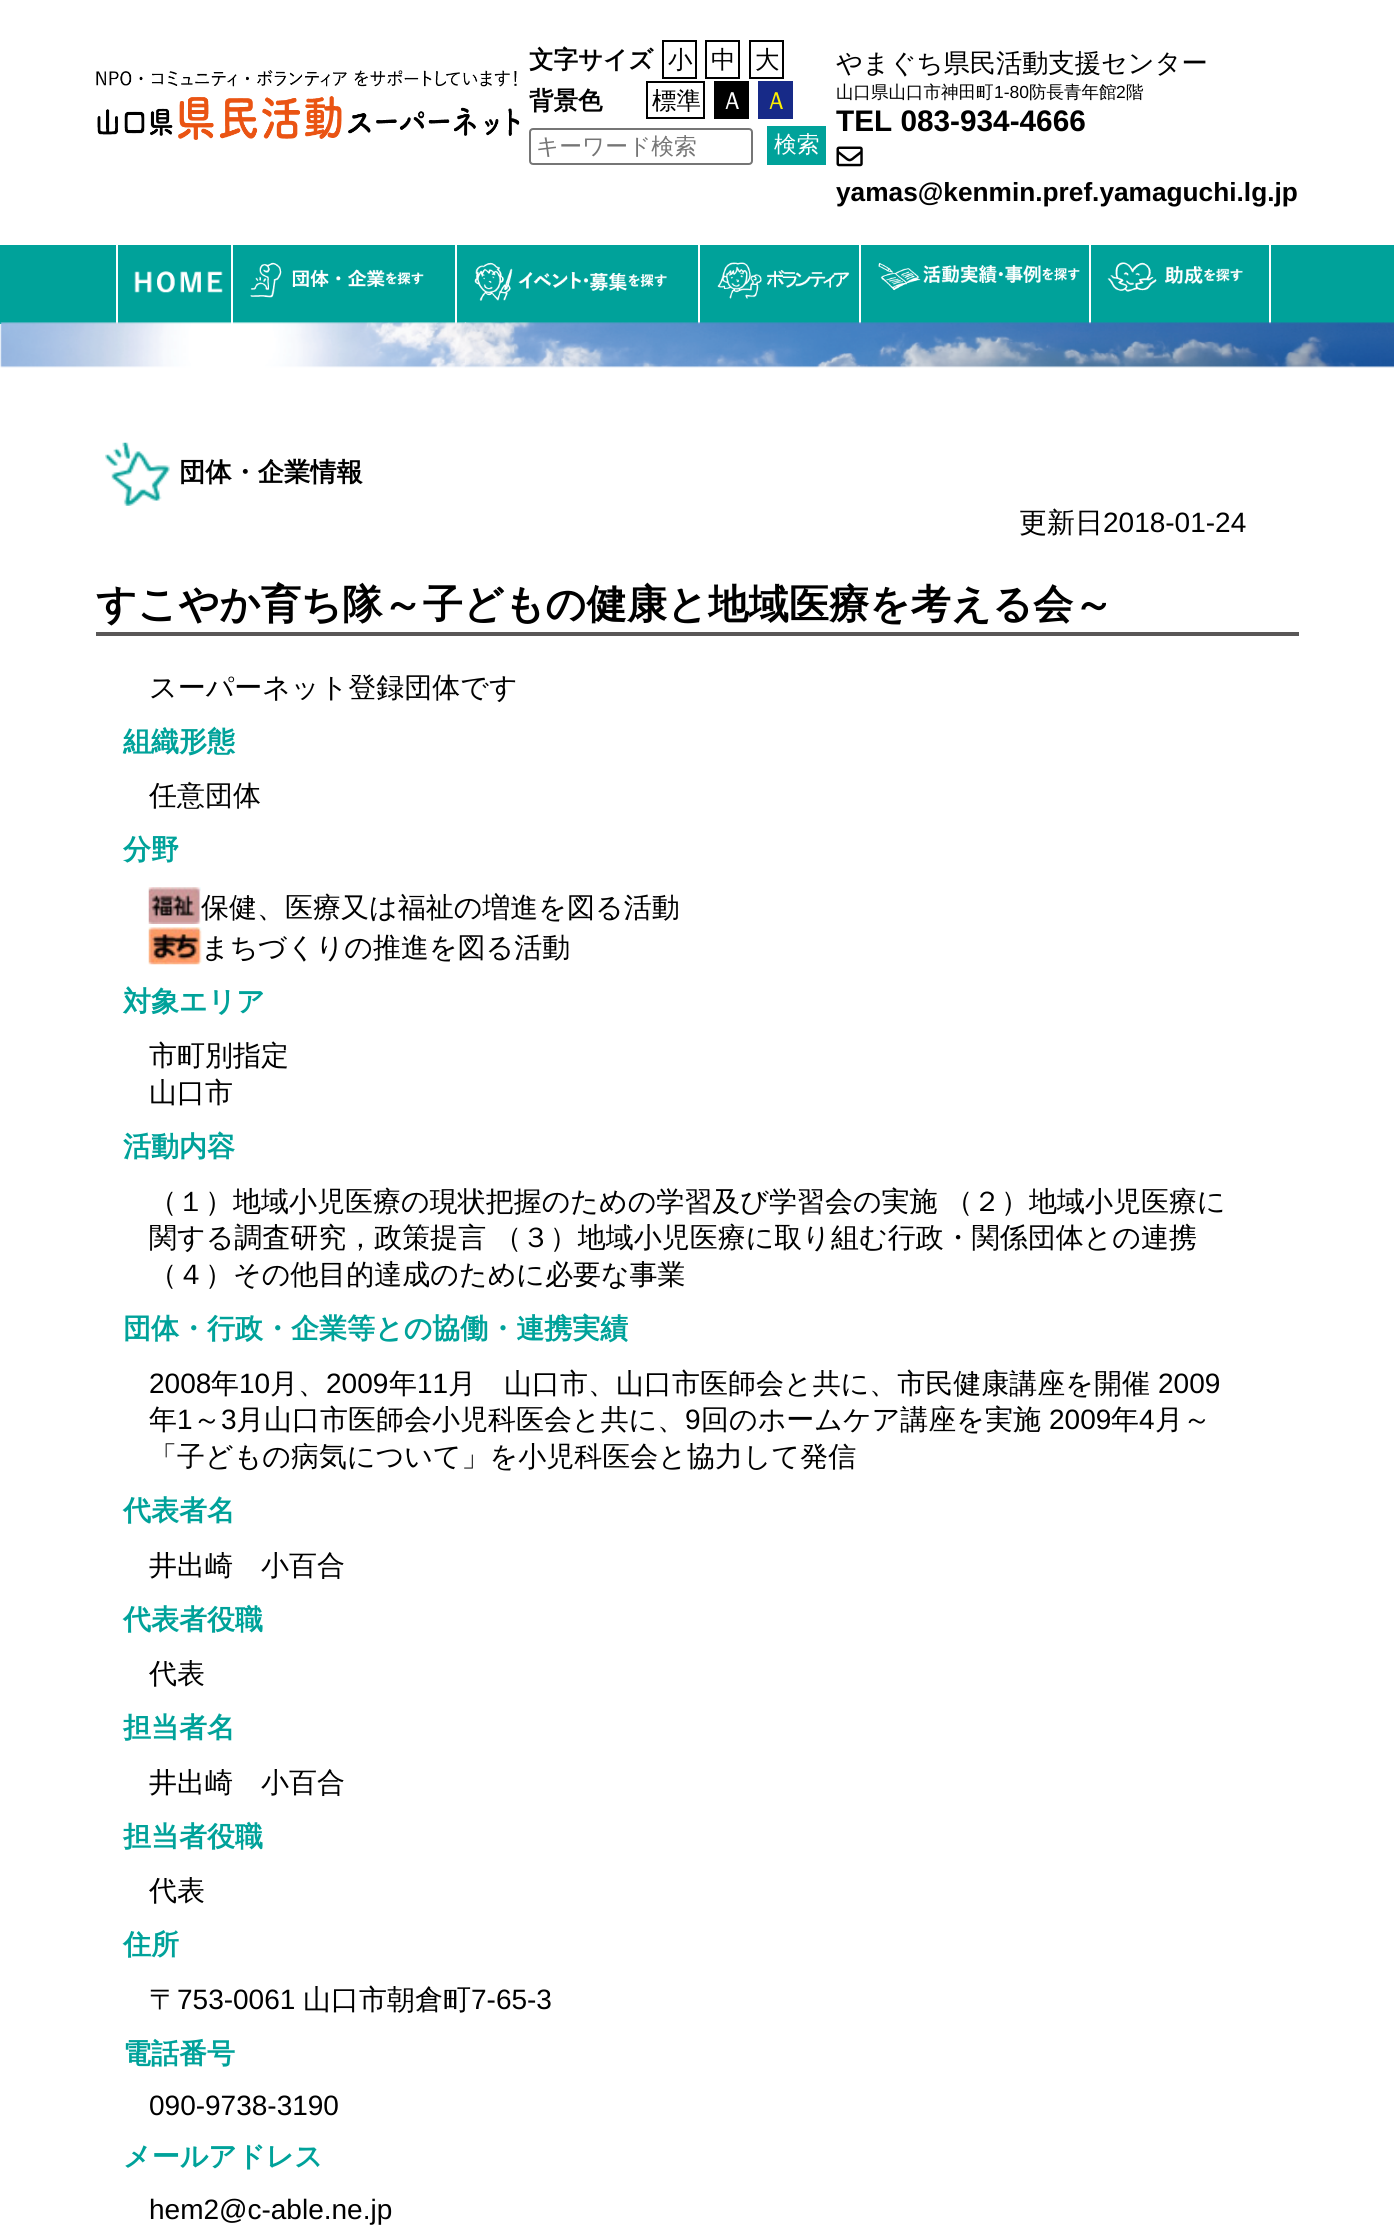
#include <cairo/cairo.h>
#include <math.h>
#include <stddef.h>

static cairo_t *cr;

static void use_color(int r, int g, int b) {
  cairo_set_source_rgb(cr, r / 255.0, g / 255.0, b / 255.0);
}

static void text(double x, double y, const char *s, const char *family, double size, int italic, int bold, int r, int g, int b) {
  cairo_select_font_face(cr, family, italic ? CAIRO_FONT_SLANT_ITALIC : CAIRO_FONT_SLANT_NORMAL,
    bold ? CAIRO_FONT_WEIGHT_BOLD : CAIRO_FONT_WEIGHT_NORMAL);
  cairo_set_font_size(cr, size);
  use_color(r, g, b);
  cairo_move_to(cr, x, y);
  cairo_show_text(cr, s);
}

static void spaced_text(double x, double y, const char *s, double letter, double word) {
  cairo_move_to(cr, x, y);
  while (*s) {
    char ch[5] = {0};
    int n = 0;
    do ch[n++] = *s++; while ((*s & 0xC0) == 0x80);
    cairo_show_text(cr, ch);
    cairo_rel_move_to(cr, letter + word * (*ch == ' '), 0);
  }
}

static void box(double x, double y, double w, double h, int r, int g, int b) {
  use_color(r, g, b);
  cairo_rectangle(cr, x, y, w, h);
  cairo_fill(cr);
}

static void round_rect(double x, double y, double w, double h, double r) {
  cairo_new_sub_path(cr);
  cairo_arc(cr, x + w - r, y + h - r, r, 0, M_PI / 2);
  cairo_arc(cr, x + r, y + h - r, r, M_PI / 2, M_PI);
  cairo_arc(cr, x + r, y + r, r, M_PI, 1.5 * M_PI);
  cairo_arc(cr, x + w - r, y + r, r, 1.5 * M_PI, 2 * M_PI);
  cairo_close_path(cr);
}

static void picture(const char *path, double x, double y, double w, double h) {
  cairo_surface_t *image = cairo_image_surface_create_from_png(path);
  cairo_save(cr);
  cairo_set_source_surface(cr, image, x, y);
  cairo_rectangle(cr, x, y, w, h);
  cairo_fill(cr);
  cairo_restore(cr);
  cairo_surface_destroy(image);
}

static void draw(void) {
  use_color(255, 255, 255);
  cairo_paint(cr);
  picture("img_01.png", 96, 70, 424, 70);
  cairo_rectangle(cr, 663, 41, 33, 37);
  use_color(0, 0, 0);
  cairo_stroke(cr);
  cairo_rectangle(cr, 706, 41, 33, 37);
  cairo_stroke(cr);
  cairo_rectangle(cr, 750, 41, 33, 37);
  cairo_stroke(cr);
  cairo_rectangle(cr, 647, 82, 57, 36);
  cairo_stroke(cr);
  box(714, 81, 35, 38, 0, 0, 0);
  box(758, 81, 35, 38, 23, 42, 136);
  round_rect(530, 129, 222, 35, 3);
  use_color(118, 118, 118);
  cairo_stroke(cr);
  box(767, 126, 59, 39, 0, 162, 154);
  picture("img_02.png", 836, 146, 27, 21);
  box(0, 245, 1394, 79, 0, 162, 154);
  box(116, 245, 2, 79, 255, 255, 255);
  picture("img_03.png", 134, 271, 89, 22);
  box(231, 245, 2, 79, 255, 255, 255);
  picture("img_04.png", 250, 262, 174, 36);
  box(455, 245, 2, 79, 255, 255, 255);
  picture("img_05.png", 474, 262, 193, 39);
  box(698, 245, 2, 79, 255, 255, 255);
  picture("img_06.png", 717, 262, 133, 37);
  box(859, 245, 2, 79, 255, 255, 255);
  picture("img_07.png", 878, 262, 202, 29);
  box(1269, 245, 2, 79, 255, 255, 255);
  box(1089, 245, 2, 79, 255, 255, 255);
  picture("img_08.png", 1107, 262, 136, 30);
  picture("img_09.png", 0, 322, 1394, 46);
  picture("img_10.png", 105, 442, 65, 64);
  box(96, 632, 1203, 4, 89, 87, 87);
  picture("img_11.png", 148, 887, 53, 37);
  picture("img_12.png", 148, 927, 54, 38);
  text(529, 68, "文字サイズ", "WenQuanYi Zen Hei", 24.5, 0, 1, 0, 0, 0);
  text(668, 68, "小", "WenQuanYi Zen Hei Medium", 24.5, 0, 0, 0, 0, 0);
  text(711, 68, "中", "WenQuanYi Zen Hei Medium", 24.5, 0, 0, 0, 0, 0);
  text(755, 68, "大", "WenQuanYi Zen Hei Medium", 24.5, 0, 0, 0, 0, 0);
  text(529, 109, "背景色", "WenQuanYi Zen Hei", 24.5, 0, 1, 0, 0, 0);
  text(652, 109, "標準", "WenQuanYi Zen Hei Medium", 24.5, 0, 0, 0, 0, 0);
  text(720, 109, "Ａ", "WenQuanYi Zen Hei Medium", 24.5, 0, 0, 255, 255, 255);
  text(764, 109, "Ａ", "WenQuanYi Zen Hei Medium", 24.5, 0, 0, 255, 241, 0);
  text(536, 154, "キーワード検索", "WenQuanYi Zen Hei Medium", 22.75, 0, 0, 117, 117, 117);
  text(774, 152, "検索", "WenQuanYi Zen Hei Medium", 22.75, 0, 0, 255, 255, 255);
  text(836, 72, "やまぐち県民活動支援センター", "WenQuanYi Zen Hei Medium", 26.25, 0, 0, 0, 0, 0);
  text(836, 98, "山口県山口市神田町", "WenQuanYi Zen Hei Medium", 17.5, 0, 0, 0, 0, 0);
  text(994, 98, "1-80", "Liberation Sans", 17.5, 0, 0, 0, 0, 0);
  text(1029, 98, "防長青年館", "WenQuanYi Zen Hei Medium", 17.5, 0, 0, 0, 0, 0);
  text(1116, 98, "2", "Liberation Sans", 17.5, 0, 0, 0, 0, 0);
  text(1126, 98, "階", "WenQuanYi Zen Hei Medium", 17.5, 0, 0, 0, 0, 0);
  text(836, 131, "TEL 083-934-4666", "Liberation Sans", 29.75, 0, 1, 0, 0, 0);
  text(836, 201, "yamas@kenmin.pref.yamaguchi.lg.jp", "Liberation Sans", 26.25, 0, 1, 0, 0, 0);
  text(179, 481, "団体・企業情報", "WenQuanYi Zen Hei", 26.25, 0, 1, 0, 0, 0);
  text(1019, 532, "更新日", "WenQuanYi Zen Hei Medium", 28, 0, 0, 0, 0, 0);
  text(1103, 532, "2018-01-24", "Liberation Sans", 28, 0, 0, 0, 0, 0);
  text(96, 618, "すこやか育ち隊～子どもの健康と地域医療を考える会～", "WenQuanYi Zen Hei", 40.25, 0, 1, 0, 0, 0);
  text(149, 697, "スーパーネット登録団体です", "WenQuanYi Zen Hei Medium", 28, 0, 0, 0, 0, 0);
  text(123, 751, "組織形態", "WenQuanYi Zen Hei", 28, 0, 1, 0, 162, 154);
  text(149, 805, "任意団体", "WenQuanYi Zen Hei Medium", 28, 0, 0, 0, 0, 0);
  text(123, 859, "分野", "WenQuanYi Zen Hei", 28, 0, 1, 0, 162, 154);
  text(201, 917, "保健、医療又は福祉の増進を図る活動", "WenQuanYi Zen Hei Medium", 28, 0, 0, 0, 0, 0);
  text(201, 957, "まちづくりの推進を図る活動", "WenQuanYi Zen Hei Medium", 28, 0, 0, 0, 0, 0);
  text(123, 1011, "対象エリア", "WenQuanYi Zen Hei", 28, 0, 1, 0, 162, 154);
  text(149, 1065, "市町別指定", "WenQuanYi Zen Hei Medium", 28, 0, 0, 0, 0, 0);
  text(149, 1102, "山口市", "WenQuanYi Zen Hei Medium", 28, 0, 0, 0, 0, 0);
  text(123, 1156, "活動内容", "WenQuanYi Zen Hei", 28, 0, 1, 0, 162, 154);
  cairo_select_font_face(cr, "WenQuanYi Zen Hei Medium", CAIRO_FONT_SLANT_NORMAL, CAIRO_FONT_WEIGHT_NORMAL);
  use_color(0, 0, 0);
  spaced_text(149, 1211, "（１）地域小児医療の現状把握のための学習及び学習会の実施 （２）地域小児医療に", 0, -1);
  spaced_text(149, 1247, "関する調査研究，政策提言 （３）地域小児医療に取り組む行政・関係団体との連携", 0, -1);
  text(149, 1284, "（４）その他目的達成のために必要な事業", "WenQuanYi Zen Hei Medium", 28, 0, 0, 0, 0, 0);
  text(123, 1338, "団体・行政・企業等との協働・連携実績", "WenQuanYi Zen Hei", 28, 0, 1, 0, 162, 154);
  text(149, 1393, "2008", "Liberation Sans", 28, 0, 0, 0, 0, 0);
  text(211, 1393, "年", "WenQuanYi Zen Hei Medium", 28, 0, 0, 0, 0, 0);
  text(239, 1393, "10", "Liberation Sans", 28, 0, 0, 0, 0, 0);
  text(270, 1393, "月、", "WenQuanYi Zen Hei Medium", 28, 0, 0, 0, 0, 0);
  text(326, 1393, "2009", "Liberation Sans", 28, 0, 0, 0, 0, 0);
  text(389, 1393, "年", "WenQuanYi Zen Hei Medium", 28, 0, 0, 0, 0, 0);
  text(417, 1393, "11", "Liberation Sans", 28, 0, 0, 0, 0, 0);
  text(448, 1393, "月　山口市、山口市医師会と共に、市民健康講座を開催", "WenQuanYi Zen Hei Medium", 28, 0, 0, 0, 0, 0);
  text(1158, 1393, "2009", "Liberation Sans", 28, 0, 0, 0, 0, 0);
  text(149, 1429, "年", "WenQuanYi Zen Hei Medium", 28, 0, 0, 0, 0, 0);
  text(177, 1429, "1", "Liberation Sans", 28, 0, 0, 0, 0, 0);
  text(193, 1429, "～", "WenQuanYi Zen Hei Medium", 28, 0, 0, 0, 0, 0);
  text(221, 1429, "3", "Liberation Sans", 28, 0, 0, 0, 0, 0);
  text(236, 1429, "月山口市医師会小児科医会と共に、", "WenQuanYi Zen Hei Medium", 28, 0, 0, 0, 0, 0);
  text(685, 1429, "9", "Liberation Sans", 28, 0, 0, 0, 0, 0);
  text(701, 1429, "回のホームケア講座を実施", "WenQuanYi Zen Hei Medium", 28, 0, 0, 0, 0, 0);
  text(1049, 1429, "2009", "Liberation Sans", 28, 0, 0, 0, 0, 0);
  text(1111, 1429, "年", "WenQuanYi Zen Hei Medium", 28, 0, 0, 0, 0, 0);
  text(1139, 1429, "4", "Liberation Sans", 28, 0, 0, 0, 0, 0);
  text(1155, 1429, "月～", "WenQuanYi Zen Hei Medium", 28, 0, 0, 0, 0, 0);
  text(149, 1466, "「子どもの病気について」を小児科医会と協力して発信", "WenQuanYi Zen Hei Medium", 28, 0, 0, 0, 0, 0);
  text(123, 1520, "代表者名", "WenQuanYi Zen Hei", 28, 0, 1, 0, 162, 154);
  text(149, 1575, "井出崎　小百合", "WenQuanYi Zen Hei Medium", 28, 0, 0, 0, 0, 0);
  text(123, 1629, "代表者役職", "WenQuanYi Zen Hei", 28, 0, 1, 0, 162, 154);
  text(149, 1683, "代表", "WenQuanYi Zen Hei Medium", 28, 0, 0, 0, 0, 0);
  text(123, 1737, "担当者名", "WenQuanYi Zen Hei", 28, 0, 1, 0, 162, 154);
  text(149, 1792, "井出崎　小百合", "WenQuanYi Zen Hei Medium", 28, 0, 0, 0, 0, 0);
  text(123, 1846, "担当者役職", "WenQuanYi Zen Hei", 28, 0, 1, 0, 162, 154);
  text(149, 1900, "代表", "WenQuanYi Zen Hei Medium", 28, 0, 0, 0, 0, 0);
  text(123, 1954, "住所", "WenQuanYi Zen Hei", 28, 0, 1, 0, 162, 154);
  text(149, 2009, "〒", "WenQuanYi Zen Hei Medium", 28, 0, 0, 0, 0, 0);
  text(177, 2009, "753-0061", "Liberation Sans", 28, 0, 0, 0, 0, 0);
  text(303, 2009, "山口市朝倉町", "WenQuanYi Zen Hei Medium", 28, 0, 0, 0, 0, 0);
  text(471, 2009, "7-65-3", "Liberation Sans", 28, 0, 0, 0, 0, 0);
  text(123, 2063, "電話番号", "WenQuanYi Zen Hei", 28, 0, 1, 0, 162, 154);
  text(149, 2115, "090-9738-3190", "Liberation Sans", 28, 0, 0, 0, 0, 0);
  text(123, 2166, "メールアドレス", "WenQuanYi Zen Hei", 28, 0, 1, 0, 162, 154);
  text(149, 2219, "hem2@c-able.ne.jp", "Liberation Sans", 28, 0, 0, 0, 0, 0);
}

int main(void) {
  cairo_surface_t *surface = cairo_image_surface_create(CAIRO_FORMAT_RGB24, 1394, 2227);
  cr = cairo_create(surface);
  cairo_font_options_t *options = cairo_font_options_create();
  cairo_font_options_set_hint_metrics(options, CAIRO_HINT_METRICS_OFF);
  cairo_font_options_set_hint_style(options, CAIRO_HINT_STYLE_NONE);
  cairo_set_font_options(cr, options);
  cairo_set_miter_limit(cr, 4);
  draw();
  cairo_surface_write_to_png(surface, "out.png");
  cairo_font_options_destroy(options);
  cairo_destroy(cr);
  cairo_surface_destroy(surface);
  return 0;
}
